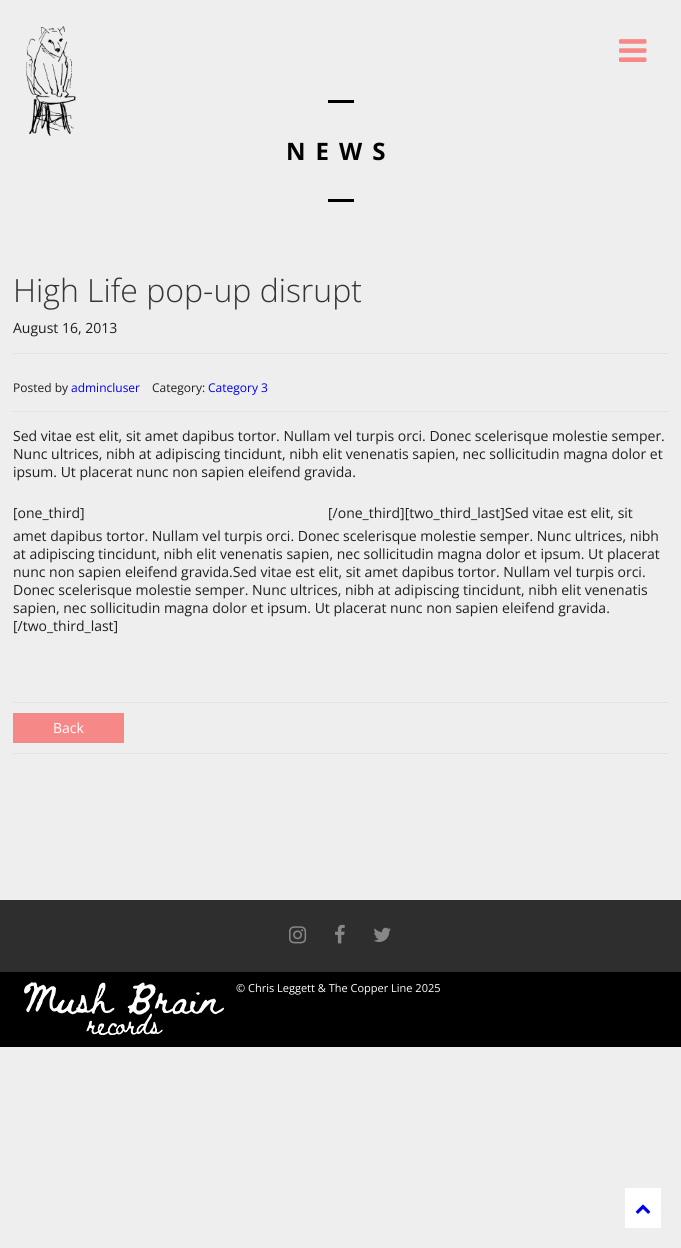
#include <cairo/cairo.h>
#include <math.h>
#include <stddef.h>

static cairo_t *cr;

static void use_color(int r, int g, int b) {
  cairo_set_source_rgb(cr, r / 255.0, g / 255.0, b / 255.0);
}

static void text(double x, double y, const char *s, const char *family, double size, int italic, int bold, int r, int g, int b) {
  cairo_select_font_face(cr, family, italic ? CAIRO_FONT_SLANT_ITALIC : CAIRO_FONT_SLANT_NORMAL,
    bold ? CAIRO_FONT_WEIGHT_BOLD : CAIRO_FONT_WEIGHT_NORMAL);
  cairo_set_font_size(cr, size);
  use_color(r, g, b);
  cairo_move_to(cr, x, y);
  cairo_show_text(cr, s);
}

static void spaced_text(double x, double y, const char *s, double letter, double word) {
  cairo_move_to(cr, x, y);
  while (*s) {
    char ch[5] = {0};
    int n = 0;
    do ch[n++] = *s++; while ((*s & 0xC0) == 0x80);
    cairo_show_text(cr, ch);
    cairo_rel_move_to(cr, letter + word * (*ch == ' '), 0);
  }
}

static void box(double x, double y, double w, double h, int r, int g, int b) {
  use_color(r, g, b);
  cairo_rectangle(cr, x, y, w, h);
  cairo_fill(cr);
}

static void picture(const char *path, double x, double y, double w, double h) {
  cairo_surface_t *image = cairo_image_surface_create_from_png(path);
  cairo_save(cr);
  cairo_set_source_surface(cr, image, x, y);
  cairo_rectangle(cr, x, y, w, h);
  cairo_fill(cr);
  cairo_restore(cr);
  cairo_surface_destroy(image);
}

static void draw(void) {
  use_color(238, 238, 238);
  cairo_paint(cr);
  picture("img_01.png", 26, 26, 50, 111);
  picture("img_02.png", 619, 39, 28, 23);
  box(328, 100, 26, 3, 0, 0, 0);
  box(328, 199, 26, 3, 0, 0, 0);
  box(13, 353, 655, 1, 226, 226, 226);
  box(13, 411, 655, 1, 226, 226, 226);
  box(13, 702, 655, 1, 226, 226, 226);
  box(13, 753, 655, 1, 226, 226, 226);
  box(13, 713, 111, 30, 247, 136, 136);
  box(0, 900, 681, 72, 46, 46, 46);
  picture("img_03.png", 289, 926, 18, 18);
  picture("img_04.png", 335, 924, 10, 20);
  picture("img_05.png", 373, 927, 18, 15);
  box(0, 972, 681, 75, 0, 0, 0);
  picture("img_06.png", 24, 982, 200, 53);
  box(625, 1188, 36, 40, 255, 255, 255);
  picture("img_07.png", 635, 1204, 16, 10);
  cairo_select_font_face(cr, "Open Sans", CAIRO_FONT_SLANT_NORMAL, CAIRO_FONT_WEIGHT_BOLD);
  cairo_set_font_size(cr, 24);
  use_color(1, 1, 1);
  spaced_text(286, 160, "NEWS", 10, 0);
  text(13, 302, "High Life pop-up disrupt", "Open Sans Light", 32, 0, 0, 53, 53, 53);
  text(13, 333, "August 16, 2013", "Open Sans", 14, 0, 0, 31, 31, 31);
  text(13, 392, "Posted by", "Open Sans", 12, 0, 0, 31, 31, 31);
  text(71, 392, "admincluser", "Open Sans", 12, 0, 0, 0, 0, 238);
  text(152, 392, "Category:", "Open Sans", 12, 0, 0, 31, 31, 31);
  text(208, 392, "Category 3", "Open Sans", 12, 0, 0, 0, 0, 238);
  text(13, 441, "Sed vitae est elit, sit amet dapibus tortor. Nullam vel turpis orci. Donec scelerisque molestie semper.", "Open Sans", 14, 0, 0, 31, 31, 31);
  text(13, 459, "Nunc ultrices, nibh at adipiscing tincidunt, nibh elit venenatis sapien, nec sollicitudin magna dolor et", "Open Sans", 14, 0, 0, 31, 31, 31);
  text(13, 477, "ipsum. Ut placerat nunc non sapien eleifend gravida.", "Open Sans", 14, 0, 0, 31, 31, 31);
  text(13, 518, "[one_third]", "Open Sans", 14, 0, 0, 31, 31, 31);
  text(328, 518, "[/one_third][two_third_last]Sed vitae est elit, sit", "Open Sans", 14, 0, 0, 31, 31, 31);
  text(13, 541, "amet dapibus tortor. Nullam vel turpis orci. Donec scelerisque molestie semper. Nunc ultrices, nibh", "Open Sans", 14, 0, 0, 31, 31, 31);
  text(13, 559, "at adipiscing tincidunt, nibh elit venenatis sapien, nec sollicitudin magna dolor et ipsum. Ut placerat", "Open Sans", 14, 0, 0, 31, 31, 31);
  text(13, 577, "nunc non sapien eleifend gravida.Sed vitae est elit, sit amet dapibus tortor. Nullam vel turpis orci.", "Open Sans", 14, 0, 0, 31, 31, 31);
  text(13, 595, "Donec scelerisque molestie semper. Nunc ultrices, nibh at adipiscing tincidunt, nibh elit venenatis", "Open Sans", 14, 0, 0, 31, 31, 31);
  text(13, 613, "sapien, nec sollicitudin magna dolor et ipsum. Ut placerat nunc non sapien eleifend gravida.", "Open Sans", 14, 0, 0, 31, 31, 31);
  text(13, 631, "[/two_third_last]", "Open Sans", 14, 0, 0, 31, 31, 31);
  text(53, 733, "Back", "Open Sans", 14, 0, 0, 255, 255, 255);
  text(236, 992, "© Chris Leggett & The Copper Line 2025", "Open Sans", 11, 0, 0, 255, 255, 255);
}

int main(void) {
  cairo_surface_t *surface = cairo_image_surface_create(CAIRO_FORMAT_RGB24, 681, 1248);
  cr = cairo_create(surface);
  cairo_font_options_t *options = cairo_font_options_create();
  cairo_font_options_set_hint_metrics(options, CAIRO_HINT_METRICS_OFF);
  cairo_font_options_set_hint_style(options, CAIRO_HINT_STYLE_NONE);
  cairo_set_font_options(cr, options);
  cairo_set_miter_limit(cr, 4);
  draw();
  cairo_surface_write_to_png(surface, "out.png");
  cairo_font_options_destroy(options);
  cairo_destroy(cr);
  cairo_surface_destroy(surface);
  return 0;
}
